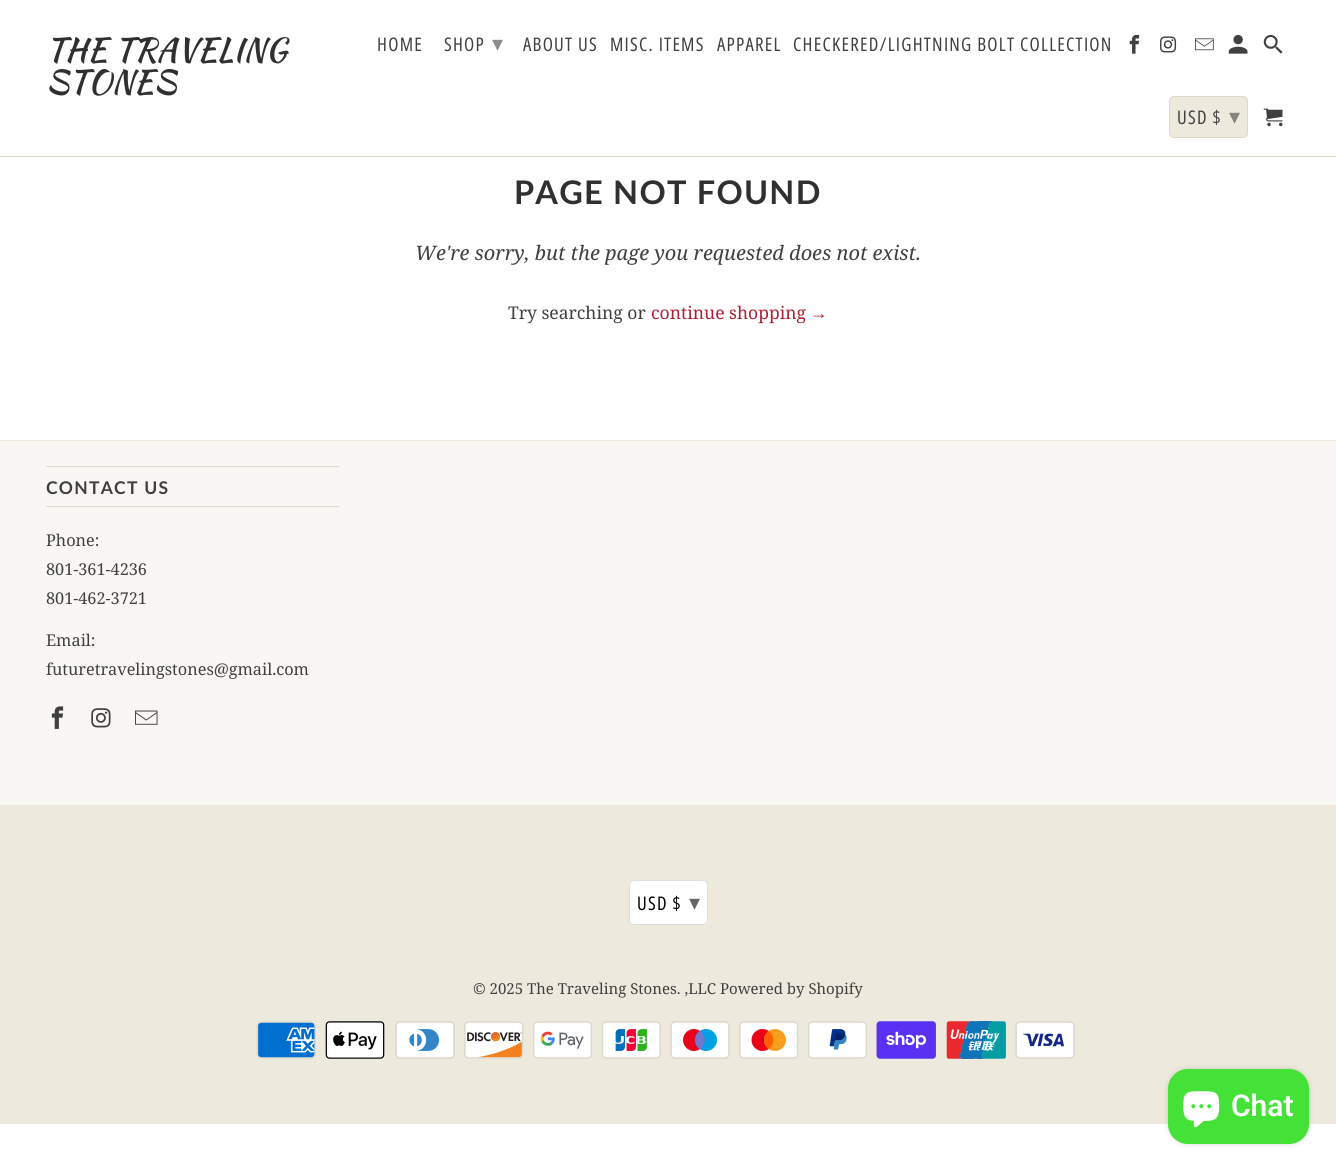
#include <cairo/cairo.h>
#include <math.h>
#include <stddef.h>

static cairo_t *cr;

static void use_color(int r, int g, int b) {
  cairo_set_source_rgb(cr, r / 255.0, g / 255.0, b / 255.0);
}

static void text(double x, double y, const char *s, const char *family, double size, int italic, int bold, int r, int g, int b) {
  cairo_select_font_face(cr, family, italic ? CAIRO_FONT_SLANT_ITALIC : CAIRO_FONT_SLANT_NORMAL,
    bold ? CAIRO_FONT_WEIGHT_BOLD : CAIRO_FONT_WEIGHT_NORMAL);
  cairo_set_font_size(cr, size);
  use_color(r, g, b);
  cairo_move_to(cr, x, y);
  cairo_show_text(cr, s);
}

static void spaced_text(double x, double y, const char *s, double letter, double word) {
  cairo_move_to(cr, x, y);
  while (*s) {
    char ch[5] = {0};
    int n = 0;
    do ch[n++] = *s++; while ((*s & 0xC0) == 0x80);
    cairo_show_text(cr, ch);
    cairo_rel_move_to(cr, letter + word * (*ch == ' '), 0);
  }
}

static void box(double x, double y, double w, double h, int r, int g, int b) {
  use_color(r, g, b);
  cairo_rectangle(cr, x, y, w, h);
  cairo_fill(cr);
}

static void round_rect(double x, double y, double w, double h, double r) {
  cairo_new_sub_path(cr);
  cairo_arc(cr, x + w - r, y + h - r, r, 0, M_PI / 2);
  cairo_arc(cr, x + r, y + h - r, r, M_PI / 2, M_PI);
  cairo_arc(cr, x + r, y + r, r, M_PI, 1.5 * M_PI);
  cairo_arc(cr, x + w - r, y + r, r, 1.5 * M_PI, 2 * M_PI);
  cairo_close_path(cr);
}

static void shadow(double x, double y, double w, double h, double r, double blur, double alpha) {
  cairo_push_group_with_content(cr, CAIRO_CONTENT_ALPHA);
  cairo_set_operator(cr, CAIRO_OPERATOR_SOURCE);
  for (int i = 15; i >= -15 && fmin(w, h) + blur * i / 3 > 0; i -= 2) {
    double e = blur * i / 6;
    cairo_set_source_rgba(cr, 0, 0, 0, alpha * erfc((i - 1) / 8.5) / 2);
    round_rect(x - e, y - e, w + 2 * e, h + 2 * e, fmax(0, fmin(r + e + blur * .6, fmin(w, h) / 2 + e)));
    cairo_fill(cr);
  }
  cairo_pattern_t *soft = cairo_pop_group(cr);
  cairo_mask(cr, soft);
  cairo_pattern_destroy(soft);
}

static void picture(const char *path, double x, double y, double w, double h) {
  cairo_surface_t *image = cairo_image_surface_create_from_png(path);
  cairo_save(cr);
  cairo_set_source_surface(cr, image, x, y);
  cairo_rectangle(cr, x, y, w, h);
  cairo_fill(cr);
  cairo_restore(cr);
  cairo_surface_destroy(image);
}

static void draw(void) {
  use_color(255, 255, 255);
  cairo_paint(cr);
  box(0, 156, 1336, 1, 222, 214, 199);
  picture("img_01.png", 1129, 34, 11, 20);
  picture("img_02.png", 1160, 36, 17, 17);
  picture("img_03.png", 1195, 38, 19, 13);
  picture("img_04.png", 1228, 34, 20, 20);
  picture("img_05.png", 1263, 34, 20, 20);
  use_color(237, 233, 221);
  round_rect(1169.5, 96.5, 78, 41, 4.5);
  cairo_fill_preserve(cr);
  use_color(222, 214, 199);
  cairo_set_line_width(cr, 1);
  cairo_stroke(cr);
  picture("img_06.png", 1263, 108, 20, 19);
  box(0, 441, 1336, 364, 249, 247, 243);
  box(0, 440, 1336, 1, 237, 233, 221);
  box(46, 466, 293, 1, 222, 214, 199);
  box(46, 506, 293, 1, 222, 214, 199);
  picture("img_07.png", 51, 706, 13, 23);
  picture("img_08.png", 91, 708, 20, 20);
  picture("img_09.png", 135, 710, 23, 15);
  box(0, 805, 1336, 319, 237, 233, 221);
  use_color(255, 255, 255);
  round_rect(629.5, 880.5, 78, 44, 4.5);
  cairo_fill_preserve(cr);
  use_color(220, 224, 224);
  cairo_stroke(cr);
  picture("img_10.png", 256, 1021, 60, 38);
  picture("img_11.png", 325, 1021, 60, 38);
  picture("img_12.png", 395, 1021, 60, 38);
  picture("img_13.png", 464, 1021, 60, 38);
  picture("img_14.png", 533, 1021, 59, 38);
  picture("img_15.png", 601, 1021, 60, 38);
  picture("img_16.png", 670, 1021, 60, 38);
  picture("img_17.png", 739, 1021, 60, 38);
  picture("img_18.png", 808, 1021, 59, 38);
  picture("img_19.png", 876, 1021, 60, 38);
  picture("img_20.png", 946, 1021, 60, 38);
  picture("img_21.png", 1015, 1021, 60, 38);
  use_color(0, 0, 0);
  shadow(1168, 1069, 141, 75, 20, 3, 0.15);
  use_color(68, 226, 54);
  round_rect(1168, 1069, 141, 75, 20);
  cairo_fill(cr);
  picture("img_22.png", 1183, 1091, 37, 37);
  text(46, 61, "THE TRAVELING", "Kaushan Script", 32.5, 0, 0, 48, 48, 48);
  text(46, 93, "STONES", "Kaushan Script", 32.5, 0, 0, 48, 48, 48);
  cairo_select_font_face(cr, "Open Sans Condensed", CAIRO_FONT_SLANT_NORMAL, CAIRO_FONT_WEIGHT_NORMAL);
  cairo_set_font_size(cr, 18.75);
  use_color(64, 64, 64);
  spaced_text(377, 51, "HOME", 1.25, 0);
  spaced_text(444, 51, "SHOP", 1.25, 0);
  cairo_select_font_face(cr, "DejaVu Sans", CAIRO_FONT_SLANT_NORMAL, CAIRO_FONT_WEIGHT_NORMAL);
  cairo_set_font_size(cr, 22);
  use_color(140, 140, 140);
  spaced_text(492, 51, "▾", 1.25, 0);
  cairo_select_font_face(cr, "Open Sans Condensed", CAIRO_FONT_SLANT_NORMAL, CAIRO_FONT_WEIGHT_NORMAL);
  cairo_set_font_size(cr, 18.75);
  use_color(64, 64, 64);
  spaced_text(523, 51, "ABOUT US", 1.25, 0);
  spaced_text(610, 51, "MISC. ITEMS", 1.25, 0);
  spaced_text(717, 51, "APPAREL", 1.25, 0);
  spaced_text(793, 51, "CHECKERED/LIGHTNING BOLT COLLECTION", 1.25, 0);
  spaced_text(1177, 124, "USD $", 1.25, 0);
  cairo_select_font_face(cr, "DejaVu Sans", CAIRO_FONT_SLANT_NORMAL, CAIRO_FONT_WEIGHT_NORMAL);
  cairo_set_font_size(cr, 22);
  use_color(133, 132, 127);
  spaced_text(1229, 124, "▾", 1.25, 0);
  cairo_select_font_face(cr, "Lato", CAIRO_FONT_SLANT_NORMAL, CAIRO_FONT_WEIGHT_BOLD);
  cairo_set_font_size(cr, 32.5);
  use_color(48, 48, 48);
  spaced_text(514, 204, "PAGE NOT FOUND", 1.25, 0);
  text(415, 260, "We're sorry, but the page you requested does not exist.", "Noto Serif", 20, 1, 0, 64, 64, 64);
  text(508, 319, "Try searching or", "Noto Serif", 17.5, 0, 0, 64, 64, 64);
  text(651, 319, "continue shopping", "Noto Serif", 17.5, 0, 0, 175, 31, 49);
  text(810, 319, "→", "Liberation Serif", 17.5, 0, 0, 175, 31, 49);
  cairo_select_font_face(cr, "Lato", CAIRO_FONT_SLANT_NORMAL, CAIRO_FONT_WEIGHT_BOLD);
  use_color(64, 64, 64);
  spaced_text(46, 494, "CONTACT US", 1.25, 0);
  text(46, 546, "Phone:", "Noto Serif", 16.25, 0, 0, 64, 64, 64);
  text(46, 575, "801-361-4236", "Noto Serif", 16.25, 0, 0, 64, 64, 64);
  text(46, 604, "801-462-3721", "Noto Serif", 16.25, 0, 0, 64, 64, 64);
  text(46, 646, "Email:", "Noto Serif", 16.25, 0, 0, 64, 64, 64);
  text(46, 675, "futuretravelingstones@gmail.com", "Noto Serif", 16.25, 0, 0, 64, 64, 64);
  cairo_select_font_face(cr, "Open Sans Condensed", CAIRO_FONT_SLANT_NORMAL, CAIRO_FONT_WEIGHT_NORMAL);
  cairo_set_font_size(cr, 18.75);
  use_color(0, 0, 0);
  spaced_text(637, 910, "USD $", 1.25, 0);
  cairo_select_font_face(cr, "DejaVu Sans", CAIRO_FONT_SLANT_NORMAL, CAIRO_FONT_WEIGHT_NORMAL);
  cairo_set_font_size(cr, 22);
  use_color(102, 102, 102);
  spaced_text(689, 910, "▾", 1.25, 0);
  text(473, 994, "© 2025 The Traveling Stones. ,LLC Powered by Shopify", "Noto Serif", 15, 0, 0, 64, 64, 64);
  text(1231, 1116, "Chat", "Roboto SemiBold", 30, 0, 0, 255, 255, 255);
}

int main(void) {
  cairo_surface_t *surface = cairo_image_surface_create(CAIRO_FORMAT_RGB24, 1336, 1170);
  cr = cairo_create(surface);
  cairo_font_options_t *options = cairo_font_options_create();
  cairo_font_options_set_hint_metrics(options, CAIRO_HINT_METRICS_OFF);
  cairo_font_options_set_hint_style(options, CAIRO_HINT_STYLE_NONE);
  cairo_set_font_options(cr, options);
  cairo_set_miter_limit(cr, 4);
  draw();
  cairo_surface_write_to_png(surface, "out.png");
  cairo_font_options_destroy(options);
  cairo_destroy(cr);
  cairo_surface_destroy(surface);
  return 0;
}
